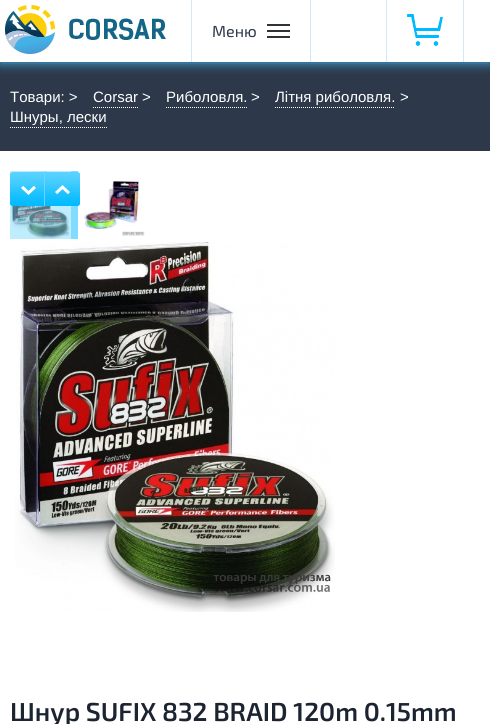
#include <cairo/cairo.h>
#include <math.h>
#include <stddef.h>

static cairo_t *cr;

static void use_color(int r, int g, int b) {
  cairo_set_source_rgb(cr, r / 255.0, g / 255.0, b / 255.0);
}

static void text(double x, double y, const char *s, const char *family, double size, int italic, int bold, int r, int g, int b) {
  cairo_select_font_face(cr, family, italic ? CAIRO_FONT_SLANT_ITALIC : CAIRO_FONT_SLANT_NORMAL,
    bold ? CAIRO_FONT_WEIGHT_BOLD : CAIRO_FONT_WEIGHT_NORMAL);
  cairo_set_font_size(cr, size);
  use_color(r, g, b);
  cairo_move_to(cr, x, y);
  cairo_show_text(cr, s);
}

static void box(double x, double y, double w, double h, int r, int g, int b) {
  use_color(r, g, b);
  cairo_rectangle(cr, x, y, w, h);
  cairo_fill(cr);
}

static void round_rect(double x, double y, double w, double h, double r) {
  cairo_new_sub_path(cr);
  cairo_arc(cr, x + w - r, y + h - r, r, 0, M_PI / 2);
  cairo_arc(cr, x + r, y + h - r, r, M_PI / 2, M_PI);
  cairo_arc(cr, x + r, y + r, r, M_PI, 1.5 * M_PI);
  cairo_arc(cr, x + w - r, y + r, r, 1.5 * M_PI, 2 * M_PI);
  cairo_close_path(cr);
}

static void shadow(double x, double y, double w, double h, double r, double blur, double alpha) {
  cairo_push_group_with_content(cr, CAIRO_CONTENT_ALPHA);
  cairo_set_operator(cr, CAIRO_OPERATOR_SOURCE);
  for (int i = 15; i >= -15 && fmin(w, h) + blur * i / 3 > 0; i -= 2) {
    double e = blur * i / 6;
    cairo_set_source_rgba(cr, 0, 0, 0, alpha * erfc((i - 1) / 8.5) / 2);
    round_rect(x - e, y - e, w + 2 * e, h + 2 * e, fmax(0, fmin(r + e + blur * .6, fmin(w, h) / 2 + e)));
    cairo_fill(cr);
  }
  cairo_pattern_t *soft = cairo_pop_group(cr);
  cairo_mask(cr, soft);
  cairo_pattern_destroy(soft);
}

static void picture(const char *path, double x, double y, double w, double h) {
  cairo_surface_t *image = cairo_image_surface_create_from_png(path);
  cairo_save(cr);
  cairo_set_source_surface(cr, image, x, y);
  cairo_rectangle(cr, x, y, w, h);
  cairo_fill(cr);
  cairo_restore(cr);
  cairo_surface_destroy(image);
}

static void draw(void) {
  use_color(255, 255, 255);
  cairo_paint(cr);
  box(0, 62, 490, 89, 45, 56, 74);
  cairo_save(cr);
  cairo_rectangle(cr, 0, 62, 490, 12);
  cairo_clip(cr);
  use_color(67, 178, 233);
  shadow(0, 1, 490, 62, 0, 5.5, 1);
  cairo_restore(cr);
  picture("img_01.png", 5, 5, 161, 49);
  box(191, 0, 1, 62, 207, 233, 249);
  box(267, 30, 23, 2, 48, 51, 54);
  box(267, 24, 23, 2, 48, 51, 54);
  box(267, 36, 23, 2, 48, 51, 54);
  box(310, 0, 1, 62, 207, 233, 249);
  box(463, 0, 1, 62, 207, 233, 249);
  box(386, 0, 1, 62, 207, 233, 249);
  picture("img_02.png", 407, 14, 36, 32);
  cairo_new_path(cr);
  cairo_move_to(cr, 93, 107.5);
  cairo_line_to(cr, 138, 107.5);
  use_color(255, 255, 255);
  cairo_set_line_width(cr, 1);
  cairo_set_dash(cr, (double[]){1, 1}, 2, 0);
  cairo_stroke(cr);
  cairo_new_path(cr);
  cairo_move_to(cr, 166, 107.5);
  cairo_line_to(cr, 247, 107.5);
  cairo_stroke(cr);
  cairo_new_path(cr);
  cairo_move_to(cr, 275, 107.5);
  cairo_line_to(cr, 395, 107.5);
  cairo_stroke(cr);
  cairo_new_path(cr);
  cairo_move_to(cr, 10, 127.5);
  cairo_line_to(cr, 107, 127.5);
  cairo_stroke(cr);
  box(10, 171, 68, 68, 128, 221, 255);
  picture("img_03.png", 10, 171, 61, 68);
  picture("img_04.png", 84, 181, 61, 55);
  picture("img_05.png", 10, 172, 34, 34);
  picture("img_06.png", 45, 172, 35, 34);
  box(44, 172, 1, 34, 104, 214, 255);
  picture("img_07.png", 15, 242, 320, 370);
  text(212, 37, "Меню", "Exo 2", 16, 0, 0, 45, 56, 74);
  text(10, 102, "Товари: >", "Liberation Sans", 15, 0, 0, 255, 255, 255);
  text(93, 102, "Corsar", "Liberation Sans", 15, 0, 0, 255, 255, 255);
  text(142, 102, ">", "Liberation Sans", 15, 0, 0, 255, 255, 255);
  text(166, 102, "Риболовля.", "Liberation Sans", 15, 0, 0, 255, 255, 255);
  text(251, 102, ">", "Liberation Sans", 15, 0, 0, 255, 255, 255);
  text(275, 102, "Літня риболовля.", "Liberation Sans", 15, 0, 0, 255, 255, 255);
  text(400, 102, ">", "Liberation Sans", 15, 0, 0, 255, 255, 255);
  text(10, 122, "Шнуры, лески", "Liberation Sans", 15, 0, 0, 255, 255, 255);
  text(10, 721, "Шнур SUFIX 832 BRAID 120m 0.15mm", "Exo 2 SemiBold", 26, 0, 0, 28, 36, 49);
}

int main(void) {
  cairo_surface_t *surface = cairo_image_surface_create(CAIRO_FORMAT_RGB24, 490, 724);
  cr = cairo_create(surface);
  cairo_font_options_t *options = cairo_font_options_create();
  cairo_font_options_set_hint_metrics(options, CAIRO_HINT_METRICS_OFF);
  cairo_font_options_set_hint_style(options, CAIRO_HINT_STYLE_NONE);
  cairo_set_font_options(cr, options);
  cairo_set_miter_limit(cr, 4);
  draw();
  cairo_surface_write_to_png(surface, "out.png");
  cairo_font_options_destroy(options);
  cairo_destroy(cr);
  cairo_surface_destroy(surface);
  return 0;
}
